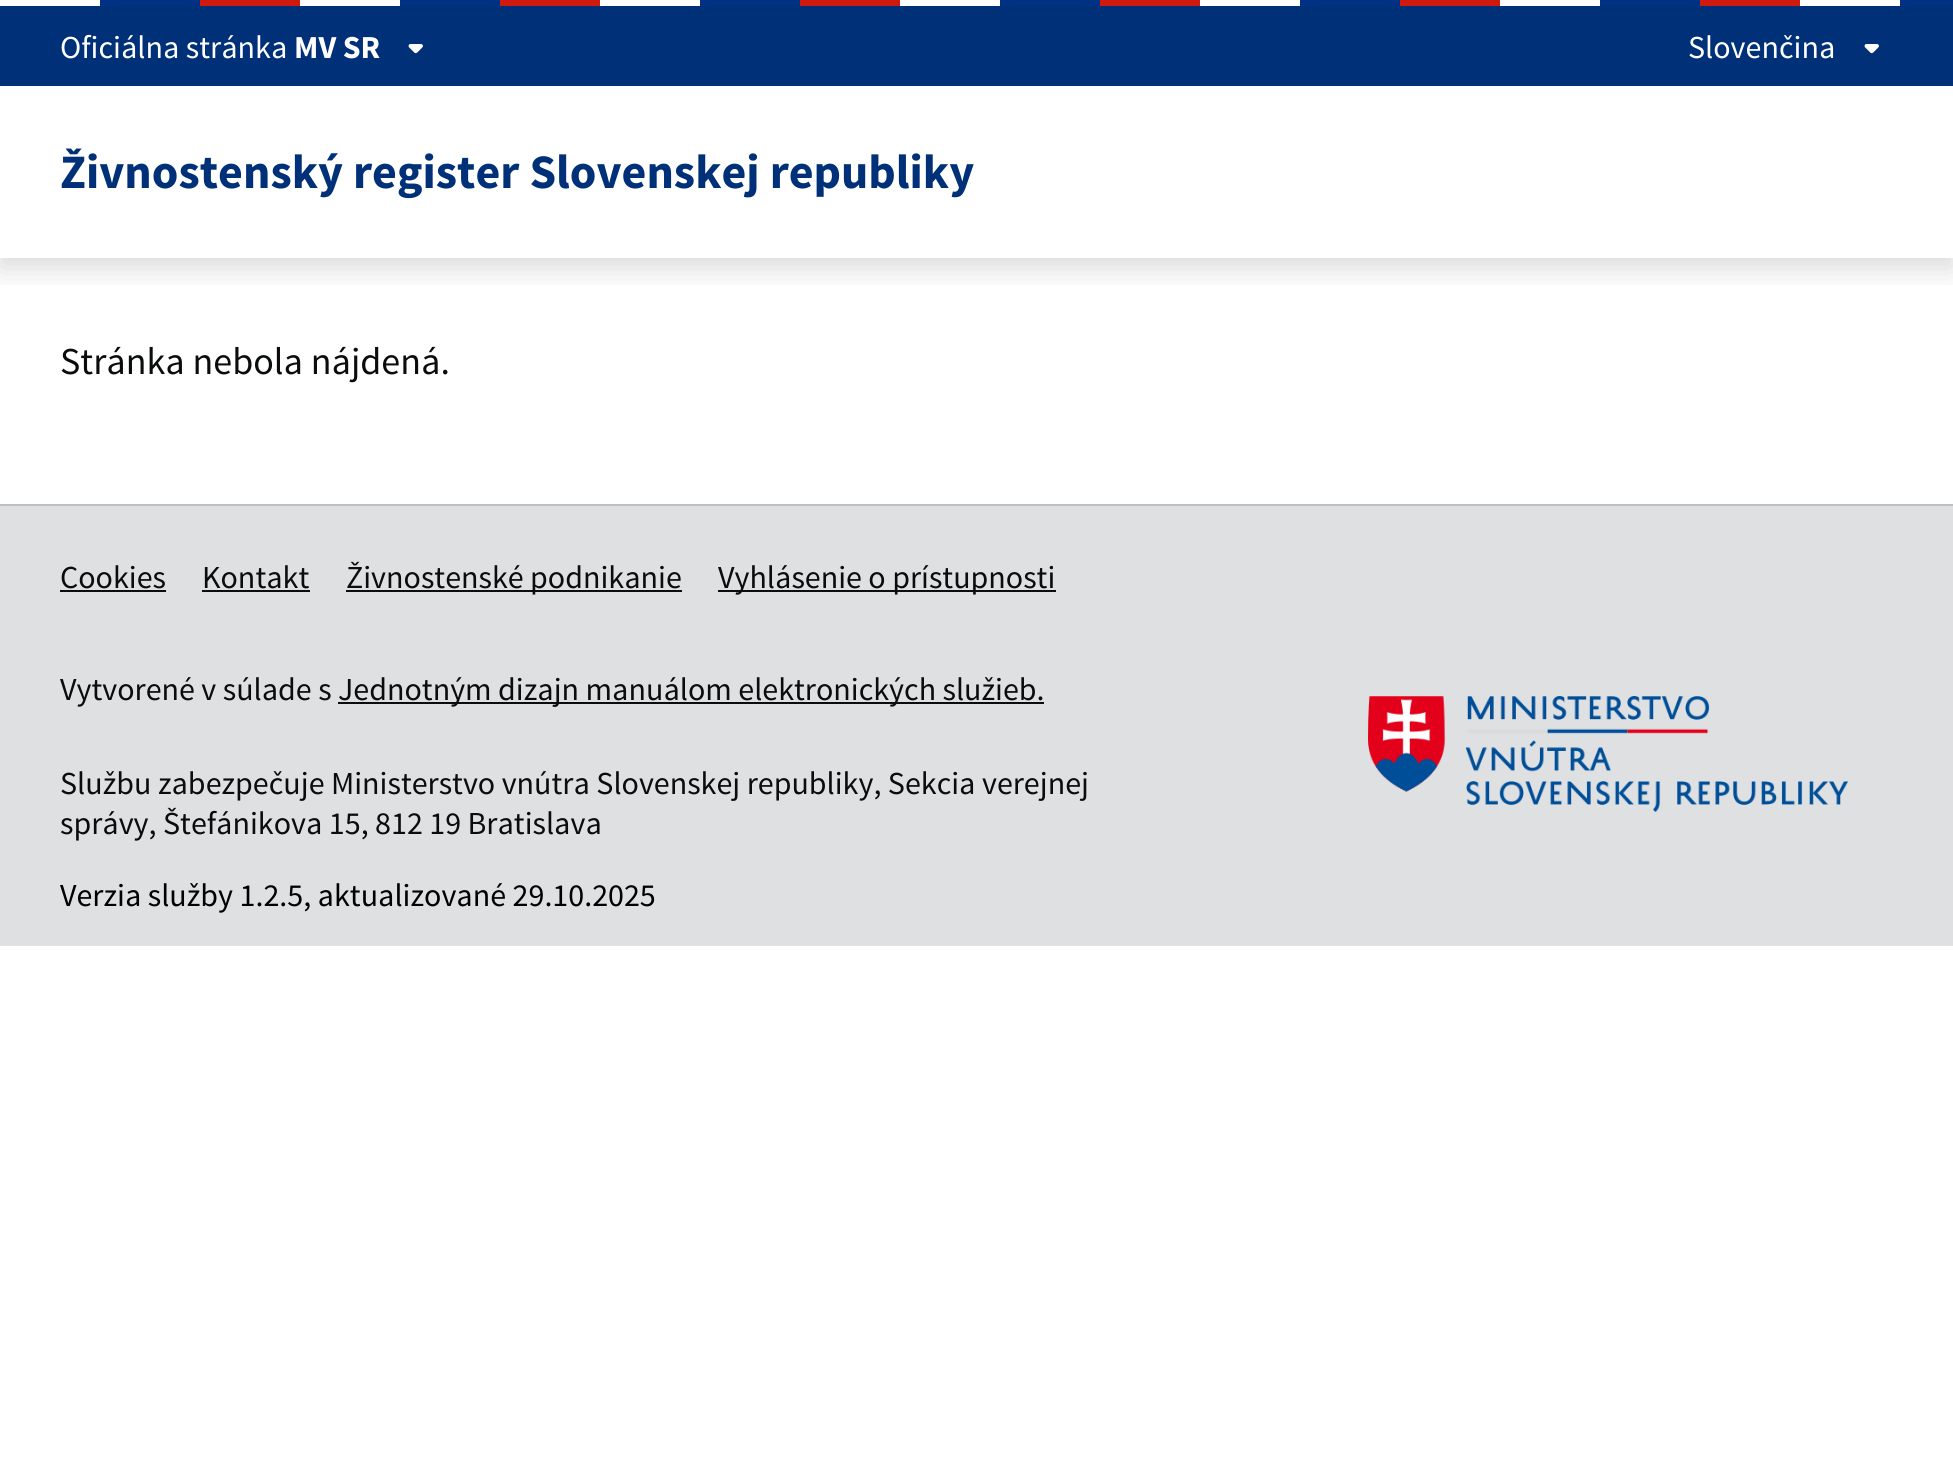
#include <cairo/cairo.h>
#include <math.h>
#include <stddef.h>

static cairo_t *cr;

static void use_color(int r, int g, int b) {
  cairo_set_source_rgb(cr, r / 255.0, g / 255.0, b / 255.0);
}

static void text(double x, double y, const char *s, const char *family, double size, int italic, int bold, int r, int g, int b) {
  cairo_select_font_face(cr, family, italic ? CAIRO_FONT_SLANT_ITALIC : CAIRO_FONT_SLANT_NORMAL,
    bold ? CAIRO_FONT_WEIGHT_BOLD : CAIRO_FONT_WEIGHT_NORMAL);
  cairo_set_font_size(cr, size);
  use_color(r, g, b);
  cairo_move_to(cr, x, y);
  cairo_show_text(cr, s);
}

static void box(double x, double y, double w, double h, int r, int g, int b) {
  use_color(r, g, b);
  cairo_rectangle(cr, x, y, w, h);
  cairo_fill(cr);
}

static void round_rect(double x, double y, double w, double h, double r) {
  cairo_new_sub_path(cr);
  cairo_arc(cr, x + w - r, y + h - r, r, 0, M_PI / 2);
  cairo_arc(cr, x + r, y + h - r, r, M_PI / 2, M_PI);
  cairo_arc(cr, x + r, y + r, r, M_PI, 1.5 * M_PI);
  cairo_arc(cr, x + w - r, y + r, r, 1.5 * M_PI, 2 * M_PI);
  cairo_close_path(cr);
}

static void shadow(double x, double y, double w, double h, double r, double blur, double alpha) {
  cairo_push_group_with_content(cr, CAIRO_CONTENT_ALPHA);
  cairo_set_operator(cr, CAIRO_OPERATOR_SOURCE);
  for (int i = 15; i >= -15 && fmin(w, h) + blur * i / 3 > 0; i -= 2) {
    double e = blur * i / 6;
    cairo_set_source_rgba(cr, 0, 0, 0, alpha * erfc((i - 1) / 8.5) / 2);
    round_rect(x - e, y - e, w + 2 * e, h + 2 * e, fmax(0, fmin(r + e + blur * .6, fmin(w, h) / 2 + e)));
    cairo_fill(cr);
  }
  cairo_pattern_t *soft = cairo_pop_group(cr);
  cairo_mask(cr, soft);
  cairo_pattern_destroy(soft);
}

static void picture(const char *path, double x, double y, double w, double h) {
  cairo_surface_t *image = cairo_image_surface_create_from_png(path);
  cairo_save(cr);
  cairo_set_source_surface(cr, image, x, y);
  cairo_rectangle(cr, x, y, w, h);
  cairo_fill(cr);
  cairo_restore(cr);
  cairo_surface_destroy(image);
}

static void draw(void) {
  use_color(255, 255, 255);
  cairo_paint(cr);
  cairo_save(cr);
  cairo_rectangle(cr, 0, 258, 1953, 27);
  cairo_clip(cr);
  use_color(0, 0, 0);
  shadow(0, 10, 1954, 258, 0, 15, 0.15);
  cairo_restore(cr);
  picture("img_01.png", 100, 0, 1853, 6);
  box(0, 6, 1953, 80, 0, 48, 120);
  picture("img_02.png", 408, 44, 15, 10);
  picture("img_02.png", 1864, 44, 15, 10);
  box(0, 504, 1953, 2, 191, 191, 191);
  box(0, 506, 1953, 440, 222, 224, 226);
  box(60, 590, 106, 2, 11, 12, 12);
  box(202, 590, 108, 2, 11, 12, 12);
  box(346, 590, 336, 2, 11, 12, 12);
  box(718, 590, 338, 2, 11, 12, 12);
  box(338, 702, 706, 2, 11, 12, 12);
  picture("img_03.png", 1368, 696, 480, 116);
  text(60, 58, "Oficiálna stránka", "Source Sans Pro", 32, 0, 0, 255, 255, 255);
  text(294, 58, "MV SR", "Source Sans Pro", 32, 0, 1, 255, 255, 255);
  text(1688, 58, "Slovenčina", "Source Sans Pro", 32, 0, 0, 255, 255, 255);
  text(60, 188, "Živnostenský register Slovenskej republiky", "Source Sans Pro", 48, 0, 1, 0, 48, 120);
  text(60, 374, "Stránka nebola nájdená.", "Source Sans Pro", 38, 0, 0, 11, 12, 12);
  text(60, 588, "Cookies", "Source Sans Pro", 32, 0, 0, 11, 12, 12);
  text(202, 588, "Kontakt", "Source Sans Pro", 32, 0, 0, 11, 12, 12);
  text(346, 588, "Živnostenské podnikanie", "Source Sans Pro", 32, 0, 0, 11, 12, 12);
  text(718, 588, "Vyhlásenie o prístupnosti", "Source Sans Pro", 32, 0, 0, 11, 12, 12);
  text(60, 700, "Vytvorené v súlade s", "Source Sans Pro", 32, 0, 0, 11, 12, 12);
  text(338, 700, "Jednotným dizajn manuálom elektronických služieb.", "Source Sans Pro", 32, 0, 0, 11, 12, 12);
  text(60, 794, "Službu zabezpečuje Ministerstvo vnútra Slovenskej republiky, Sekcia verejnej", "Source Sans Pro", 32, 0, 0, 11, 12, 12);
  text(60, 834, "správy, Štefánikova 15, 812 19 Bratislava", "Source Sans Pro", 32, 0, 0, 11, 12, 12);
  text(60, 906, "Verzia služby 1.2.5, aktualizované 29.10.2025", "Source Sans Pro", 32, 0, 0, 0, 0, 0);
}

int main(void) {
  cairo_surface_t *surface = cairo_image_surface_create(CAIRO_FORMAT_RGB24, 1953, 1478);
  cr = cairo_create(surface);
  cairo_font_options_t *options = cairo_font_options_create();
  cairo_font_options_set_hint_metrics(options, CAIRO_HINT_METRICS_OFF);
  cairo_font_options_set_hint_style(options, CAIRO_HINT_STYLE_NONE);
  cairo_set_font_options(cr, options);
  cairo_set_miter_limit(cr, 4);
  draw();
  cairo_surface_write_to_png(surface, "out.png");
  cairo_font_options_destroy(options);
  cairo_destroy(cr);
  cairo_surface_destroy(surface);
  return 0;
}
